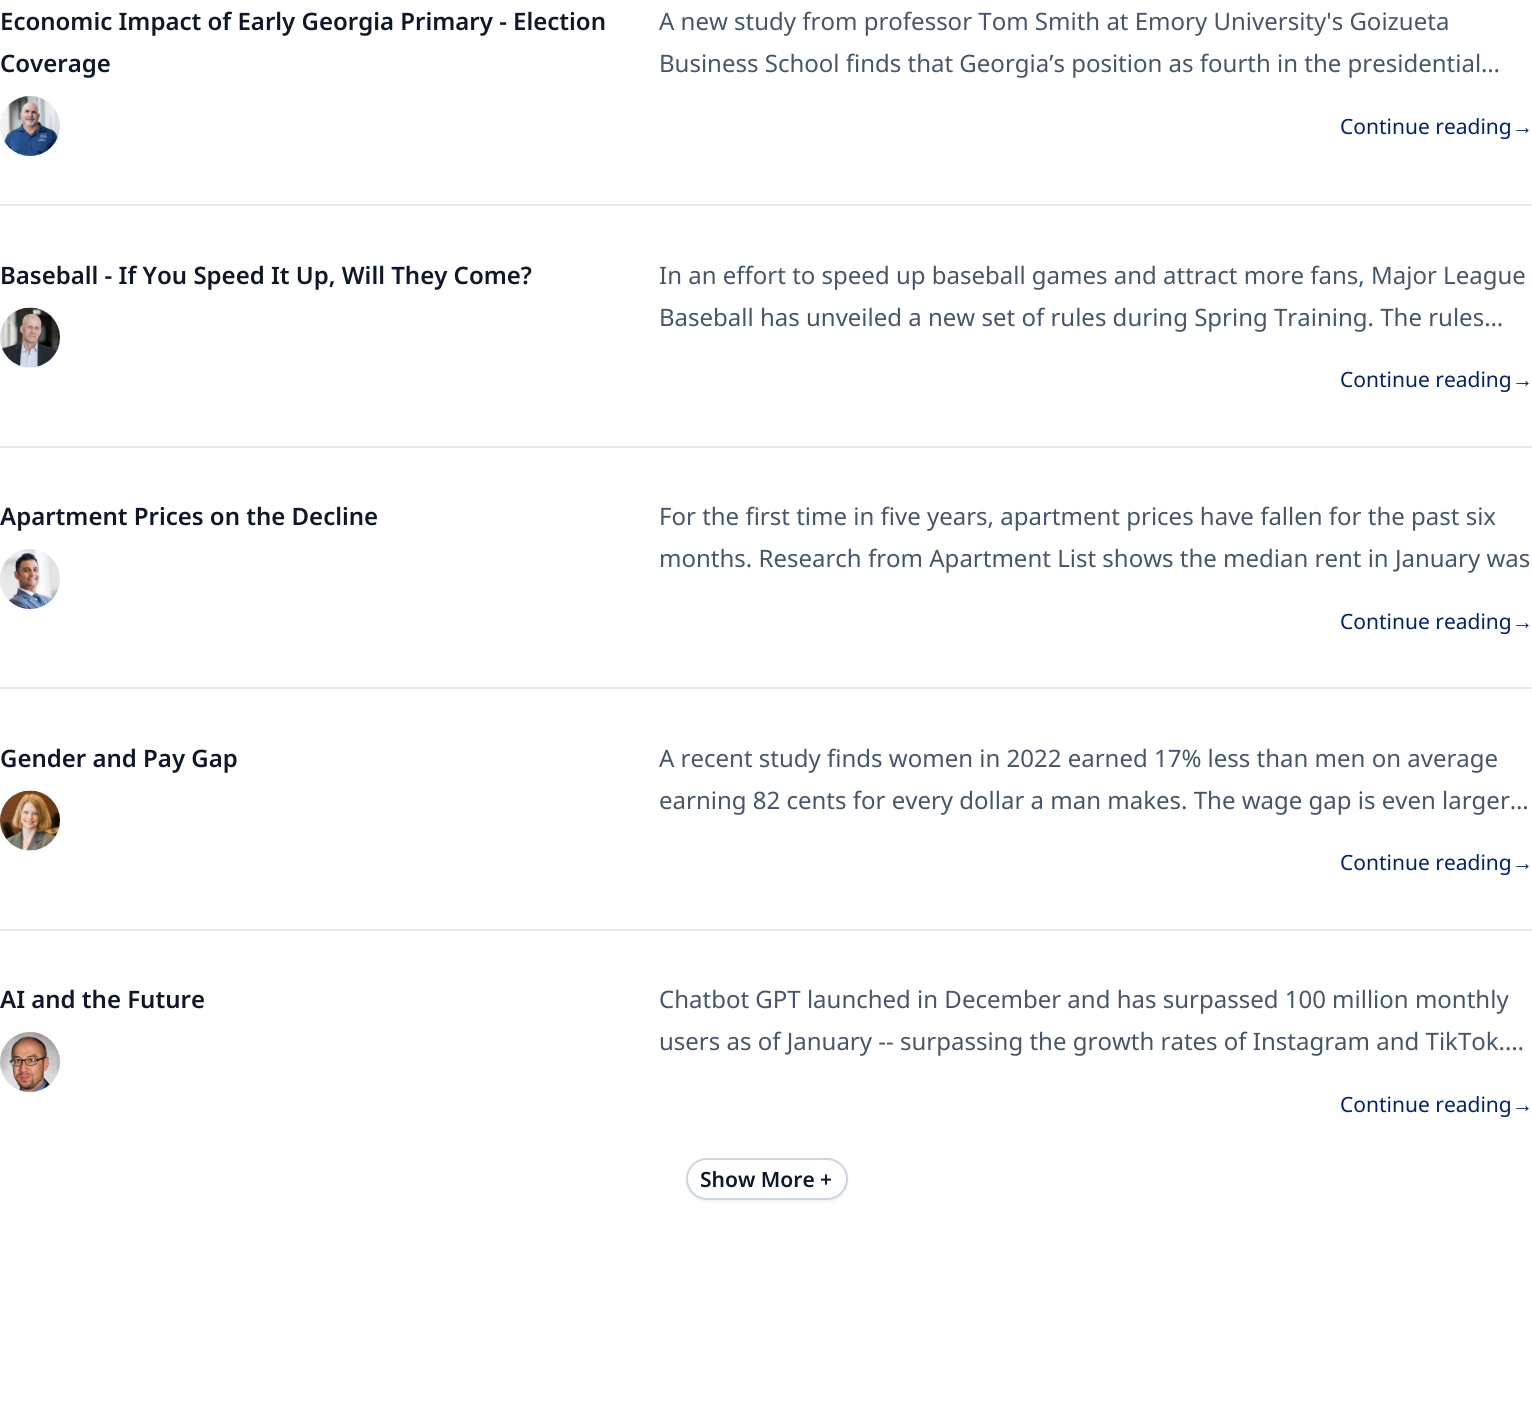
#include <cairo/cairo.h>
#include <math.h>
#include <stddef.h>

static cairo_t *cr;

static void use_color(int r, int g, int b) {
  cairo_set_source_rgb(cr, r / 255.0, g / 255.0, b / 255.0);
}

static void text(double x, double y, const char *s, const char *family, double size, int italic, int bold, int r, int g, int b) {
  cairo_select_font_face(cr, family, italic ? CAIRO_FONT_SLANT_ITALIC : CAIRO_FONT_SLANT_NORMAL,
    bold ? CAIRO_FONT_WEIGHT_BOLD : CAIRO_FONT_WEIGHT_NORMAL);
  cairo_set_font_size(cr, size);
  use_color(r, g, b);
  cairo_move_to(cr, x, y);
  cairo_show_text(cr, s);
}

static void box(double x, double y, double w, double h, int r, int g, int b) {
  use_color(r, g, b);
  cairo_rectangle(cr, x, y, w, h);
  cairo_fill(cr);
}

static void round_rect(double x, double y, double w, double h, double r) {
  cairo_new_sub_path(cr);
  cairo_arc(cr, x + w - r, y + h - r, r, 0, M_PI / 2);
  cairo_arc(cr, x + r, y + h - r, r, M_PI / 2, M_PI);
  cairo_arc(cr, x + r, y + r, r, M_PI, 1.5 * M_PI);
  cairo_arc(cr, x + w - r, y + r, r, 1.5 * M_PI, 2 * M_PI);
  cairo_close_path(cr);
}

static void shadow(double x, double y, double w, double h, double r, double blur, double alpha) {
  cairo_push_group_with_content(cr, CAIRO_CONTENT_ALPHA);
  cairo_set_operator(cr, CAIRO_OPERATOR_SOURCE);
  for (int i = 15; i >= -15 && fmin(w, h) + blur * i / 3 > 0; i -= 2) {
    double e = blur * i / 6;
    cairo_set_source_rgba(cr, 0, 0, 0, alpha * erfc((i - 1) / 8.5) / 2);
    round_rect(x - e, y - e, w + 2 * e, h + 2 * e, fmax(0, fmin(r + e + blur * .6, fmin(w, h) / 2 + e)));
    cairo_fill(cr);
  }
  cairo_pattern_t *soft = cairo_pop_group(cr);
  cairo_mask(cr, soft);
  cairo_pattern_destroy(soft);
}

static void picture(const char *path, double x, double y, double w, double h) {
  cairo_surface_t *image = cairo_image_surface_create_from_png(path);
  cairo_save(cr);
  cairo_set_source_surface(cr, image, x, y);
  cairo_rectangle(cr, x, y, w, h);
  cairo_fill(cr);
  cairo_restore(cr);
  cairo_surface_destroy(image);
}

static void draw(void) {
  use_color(255, 255, 255);
  cairo_paint(cr);
  use_color(241, 245, 249);
  cairo_arc(cr, 30, 126, 30, 0, 2 * M_PI);
  cairo_fill(cr);
  picture("img_01.png", 0, 96, 60, 60);
  box(0, 204, 1532, 2, 231, 232, 234);
  use_color(241, 245, 249);
  cairo_arc(cr, 30, 338, 30, 0, 2 * M_PI);
  cairo_fill(cr);
  picture("img_02.png", 0, 307, 60, 61);
  box(0, 446, 1532, 2, 231, 232, 234);
  use_color(241, 245, 249);
  cairo_arc(cr, 30, 579, 30, 0, 2 * M_PI);
  cairo_fill(cr);
  picture("img_03.png", 0, 549, 60, 60);
  box(0, 687, 1532, 2, 231, 232, 234);
  use_color(241, 245, 249);
  cairo_arc(cr, 30, 821, 30, 0, 2 * M_PI);
  cairo_fill(cr);
  picture("img_04.png", 0, 790, 60, 61);
  box(0, 929, 1532, 2, 231, 232, 234);
  use_color(241, 245, 249);
  cairo_arc(cr, 30, 1062, 30, 0, 2 * M_PI);
  cairo_fill(cr);
  picture("img_05.png", 0, 1032, 60, 60);
  use_color(0, 0, 0);
  shadow(686, 1160, 162, 42, 21, 1.5, 0.05);
  use_color(255, 255, 255);
  round_rect(687, 1159, 160, 40, 20);
  cairo_fill_preserve(cr);
  use_color(203, 213, 225);
  cairo_stroke(cr);
  text(0, 30, "Economic Impact of Early Georgia Primary - Election", "Noto Sans SemiBold", 24, 0, 0, 15, 23, 42);
  text(0, 72, "Coverage", "Noto Sans SemiBold", 24, 0, 0, 15, 23, 42);
  text(659, 30, "A new study from professor Tom Smith at Emory University's Goizueta", "Noto Sans", 24, 0, 0, 71, 85, 105);
  text(659, 72, "Business School finds that Georgia’s position as fourth in the presidential…", "Noto Sans", 24, 0, 0, 71, 85, 105);
  text(1340, 134, "Continue reading", "Noto Sans", 21, 0, 0, 1, 33, 105);
  text(1512, 134, "→", "Liberation Sans", 21, 0, 0, 1, 33, 105);
  text(0, 284, "Baseball - If You Speed It Up, Will They Come?", "Noto Sans SemiBold", 24, 0, 0, 15, 23, 42);
  text(659, 284, "In an effort to speed up baseball games and attract more fans, Major League", "Noto Sans", 24, 0, 0, 71, 85, 105);
  text(659, 326, "Baseball has unveiled a new set of rules during Spring Training. The rules…", "Noto Sans", 24, 0, 0, 71, 85, 105);
  text(1340, 387, "Continue reading", "Noto Sans", 21, 0, 0, 1, 33, 105);
  text(1512, 387, "→", "Liberation Sans", 21, 0, 0, 1, 33, 105);
  text(0, 525, "Apartment Prices on the Decline", "Noto Sans SemiBold", 24, 0, 0, 15, 23, 42);
  text(659, 525, "For the first time in five years, apartment prices have fallen for the past six", "Noto Sans", 24, 0, 0, 71, 85, 105);
  text(659, 567, "months. Research from Apartment List shows the median rent in January was", "Noto Sans", 24, 0, 0, 71, 85, 105);
  text(1340, 629, "Continue reading", "Noto Sans", 21, 0, 0, 1, 33, 105);
  text(1512, 629, "→", "Liberation Sans", 21, 0, 0, 1, 33, 105);
  text(0, 767, "Gender and Pay Gap", "Noto Sans SemiBold", 24, 0, 0, 15, 23, 42);
  text(659, 767, "A recent study finds women in 2022 earned 17% less than men on average", "Noto Sans", 24, 0, 0, 71, 85, 105);
  text(659, 809, "earning 82 cents for every dollar a man makes. The wage gap is even larger…", "Noto Sans", 24, 0, 0, 71, 85, 105);
  text(1340, 870, "Continue reading", "Noto Sans", 21, 0, 0, 1, 33, 105);
  text(1512, 870, "→", "Liberation Sans", 21, 0, 0, 1, 33, 105);
  text(0, 1008, "AI and the Future", "Noto Sans SemiBold", 24, 0, 0, 15, 23, 42);
  text(659, 1008, "Chatbot GPT launched in December and has surpassed 100 million monthly", "Noto Sans", 24, 0, 0, 71, 85, 105);
  text(659, 1050, "users as of January -- surpassing the growth rates of Instagram and TikTok.…", "Noto Sans", 24, 0, 0, 71, 85, 105);
  text(1340, 1112, "Continue reading", "Noto Sans", 21, 0, 0, 1, 33, 105);
  text(1512, 1112, "→", "Liberation Sans", 21, 0, 0, 1, 33, 105);
  text(700, 1187, "Show More +", "Noto Sans SemiBold", 21, 0, 0, 15, 23, 42);
}

int main(void) {
  cairo_surface_t *surface = cairo_image_surface_create(CAIRO_FORMAT_RGB24, 1532, 1412);
  cr = cairo_create(surface);
  cairo_font_options_t *options = cairo_font_options_create();
  cairo_font_options_set_hint_metrics(options, CAIRO_HINT_METRICS_OFF);
  cairo_font_options_set_hint_style(options, CAIRO_HINT_STYLE_NONE);
  cairo_set_font_options(cr, options);
  cairo_set_miter_limit(cr, 4);
  draw();
  cairo_surface_write_to_png(surface, "out.png");
  cairo_font_options_destroy(options);
  cairo_destroy(cr);
  cairo_surface_destroy(surface);
  return 0;
}
